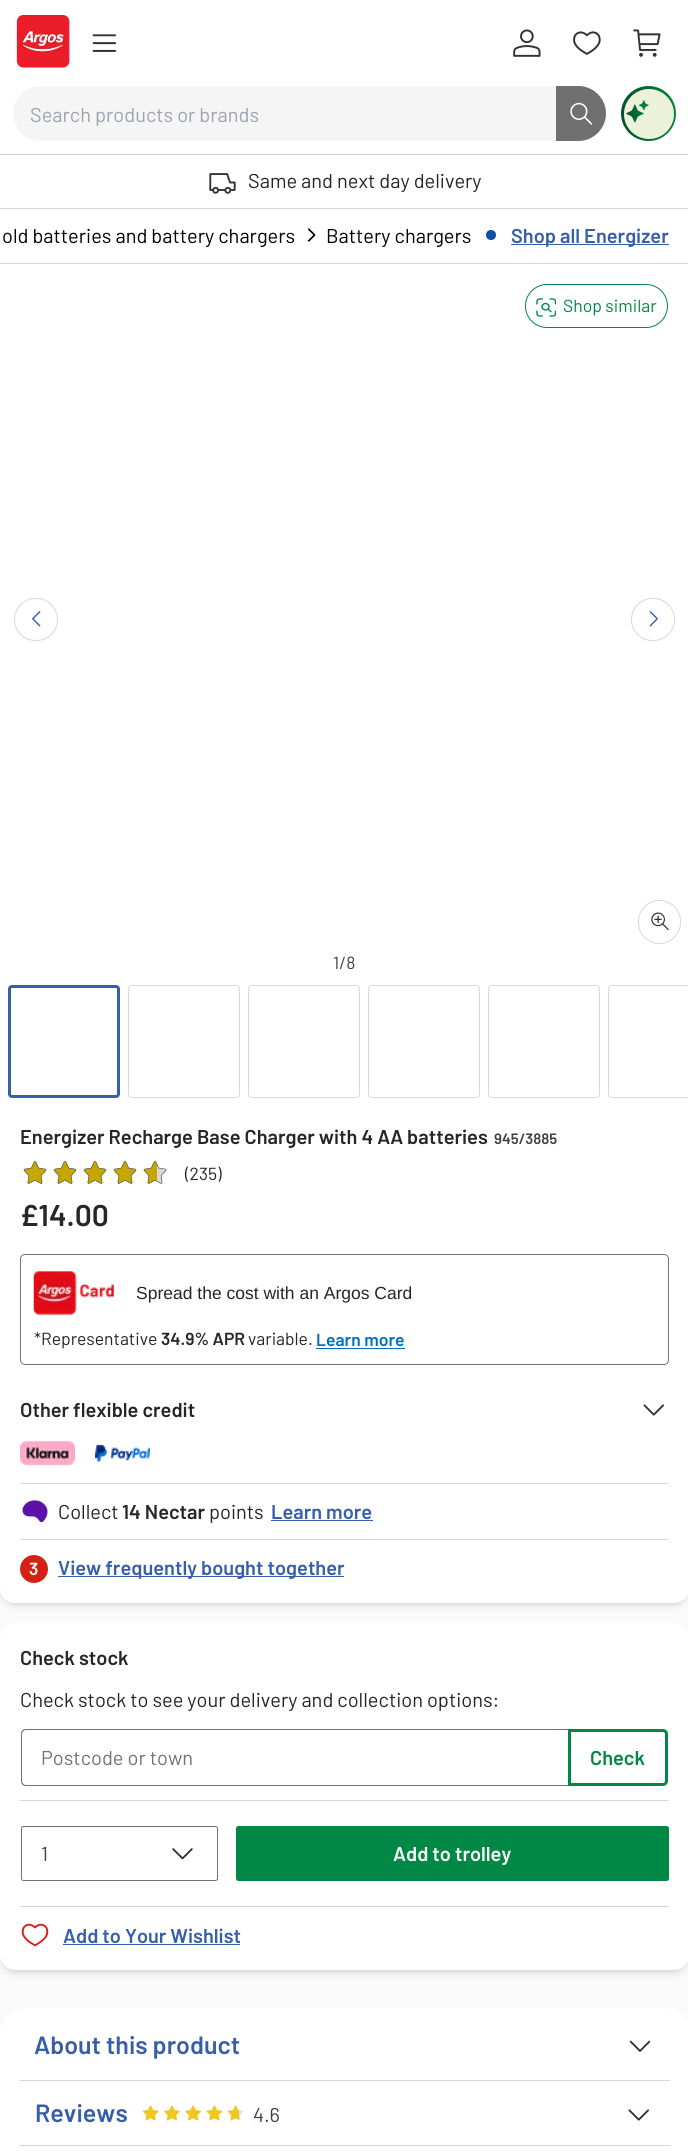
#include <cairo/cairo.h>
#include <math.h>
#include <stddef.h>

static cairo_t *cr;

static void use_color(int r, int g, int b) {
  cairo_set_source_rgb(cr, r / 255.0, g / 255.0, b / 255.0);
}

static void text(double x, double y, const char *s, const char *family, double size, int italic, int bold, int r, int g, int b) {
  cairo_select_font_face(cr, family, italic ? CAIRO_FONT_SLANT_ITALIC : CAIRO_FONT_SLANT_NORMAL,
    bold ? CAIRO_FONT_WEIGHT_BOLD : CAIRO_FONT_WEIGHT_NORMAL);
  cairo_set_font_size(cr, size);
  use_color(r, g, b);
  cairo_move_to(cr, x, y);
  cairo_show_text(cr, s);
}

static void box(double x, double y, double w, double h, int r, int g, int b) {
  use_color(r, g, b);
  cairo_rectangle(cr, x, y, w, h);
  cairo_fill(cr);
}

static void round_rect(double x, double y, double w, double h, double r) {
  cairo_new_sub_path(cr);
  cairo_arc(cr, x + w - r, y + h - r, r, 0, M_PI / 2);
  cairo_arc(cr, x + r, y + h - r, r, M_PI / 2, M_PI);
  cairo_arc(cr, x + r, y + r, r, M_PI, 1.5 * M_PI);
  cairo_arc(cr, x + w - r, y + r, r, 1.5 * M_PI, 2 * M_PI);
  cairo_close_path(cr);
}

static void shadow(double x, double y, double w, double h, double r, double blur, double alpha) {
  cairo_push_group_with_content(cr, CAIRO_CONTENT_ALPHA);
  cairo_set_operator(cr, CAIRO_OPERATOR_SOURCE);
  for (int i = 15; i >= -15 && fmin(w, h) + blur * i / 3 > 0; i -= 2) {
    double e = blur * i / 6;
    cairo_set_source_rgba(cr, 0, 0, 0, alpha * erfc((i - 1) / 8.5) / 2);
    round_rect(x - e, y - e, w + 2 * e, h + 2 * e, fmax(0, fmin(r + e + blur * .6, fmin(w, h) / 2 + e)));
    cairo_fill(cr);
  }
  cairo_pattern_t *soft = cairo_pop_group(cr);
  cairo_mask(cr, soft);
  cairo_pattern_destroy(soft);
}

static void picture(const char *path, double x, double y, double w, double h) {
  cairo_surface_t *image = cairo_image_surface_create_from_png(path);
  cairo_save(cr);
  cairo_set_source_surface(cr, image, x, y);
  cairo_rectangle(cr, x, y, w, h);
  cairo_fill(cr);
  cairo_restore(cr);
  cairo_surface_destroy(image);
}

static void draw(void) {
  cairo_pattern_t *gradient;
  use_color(255, 255, 255);
  cairo_paint(cr);
  box(0, 154, 688, 1, 204, 204, 204);
  picture("img_01.png", 16, 15, 54, 53);
  picture("img_02.png", 92, 34, 25, 18);
  picture("img_03.png", 513, 29, 28, 28);
  picture("img_04.png", 573, 31, 28, 24);
  picture("img_05.png", 633, 29, 28, 28);
  use_color(245, 245, 245);
  cairo_new_path(cr);
  cairo_move_to(cr, 40.5, 86);
  cairo_line_to(cr, 556, 86);
  cairo_line_to(cr, 556, 141);
  cairo_line_to(cr, 40.5, 141);
  cairo_curve_to(cr, 25.5, 141, 13, 128.5, 13, 113.5);
  cairo_curve_to(cr, 13, 98.5, 25.5, 86, 40.5, 86);
  cairo_close_path(cr);
  cairo_fill(cr);
  use_color(112, 112, 112);
  cairo_new_path(cr);
  cairo_move_to(cr, 556, 86);
  cairo_line_to(cr, 578.5, 86);
  cairo_curve_to(cr, 593.5, 86, 606, 98.5, 606, 113.5);
  cairo_curve_to(cr, 606, 128.5, 593.5, 141, 578.5, 141);
  cairo_line_to(cr, 556, 141);
  cairo_close_path(cr);
  cairo_fill(cr);
  picture("img_06.png", 570, 102, 23, 23);
  gradient = cairo_pattern_create_linear(621, 114, 676, 114);
  cairo_pattern_add_color_stop_rgba(gradient, 0, 0.016, 0.322, 0.157, 1);
  cairo_pattern_add_color_stop_rgba(gradient, 1, 0, 0.522, 0.259, 1);
  cairo_set_source(cr, gradient);
  cairo_pattern_destroy(gradient);
  cairo_arc(cr, 648.5, 113.5, 27.5, 0, 2 * M_PI);
  cairo_fill(cr);
  use_color(236, 242, 218);
  cairo_arc(cr, 649, 114, 25, 0, 2 * M_PI);
  cairo_fill(cr);
  picture("img_07.png", 626, 100, 23, 23);
  box(0, 1588, 688, 445, 250, 250, 250);
  box(0, 208, 688, 1, 216, 216, 216);
  picture("img_08.png", 209, 173, 27, 21);
  box(0, 263, 688, 1, 216, 216, 216);
  picture("img_09.png", 307, 228, 9, 14);
  use_color(12, 80, 159);
  cairo_arc(cr, 491, 235, 5, 0, 2 * M_PI);
  cairo_fill(cr);
  box(511, 244, 158, 1, 55, 94, 169);
  round_rect(525.5, 284.5, 142, 43, 21.5);
  use_color(0, 136, 68);
  cairo_set_line_width(cr, 1);
  cairo_stroke(cr);
  picture("img_10.png", 536, 298, 20, 19);
  round_rect(14.5, 598.5, 43, 42, 21);
  use_color(216, 216, 216);
  cairo_stroke(cr);
  picture("img_11.png", 32, 611, 9, 16);
  round_rect(631.5, 598.5, 43, 42, 21);
  cairo_stroke(cr);
  picture("img_12.png", 649, 611, 9, 16);
  round_rect(638.5, 900.5, 42, 43, 21);
  cairo_stroke(cr);
  picture("img_13.png", 651, 912, 18, 19);
  use_color(0, 0, 0);
  shadow(3, 1106, 683, 497, 13, 2.5, 0.1);
  shadow(1, 1108, 687, 498, 14, 4, 0.1);
  round_rect(9.5, 986.5, 109, 110, 2.5);
  use_color(55, 94, 169);
  cairo_set_line_width(cr, 3);
  cairo_stroke(cr);
  round_rect(128.5, 985.5, 111, 112, 3.5);
  use_color(216, 216, 216);
  cairo_set_line_width(cr, 1);
  cairo_stroke(cr);
  round_rect(248.5, 985.5, 111, 112, 3.5);
  cairo_stroke(cr);
  round_rect(368.5, 985.5, 111, 112, 3.5);
  cairo_stroke(cr);
  round_rect(488.5, 985.5, 111, 112, 3.5);
  cairo_stroke(cr);
  round_rect(608.5, 985.5, 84, 112, 3.5);
  cairo_stroke(cr);
  use_color(255, 255, 255);
  cairo_new_path(cr);
  cairo_move_to(cr, 0, 1101);
  cairo_line_to(cr, 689, 1101);
  cairo_line_to(cr, 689, 1588);
  cairo_curve_to(cr, 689, 1596.5, 682.5, 1603, 674, 1603);
  cairo_line_to(cr, 15, 1603);
  cairo_curve_to(cr, 6.5, 1603, 0, 1596.5, 0, 1588);
  cairo_close_path(cr);
  cairo_fill(cr);
  picture("img_14.png", 23, 1161, 24, 23);
  picture("img_14.png", 53, 1161, 24, 23);
  picture("img_14.png", 83, 1161, 24, 23);
  picture("img_14.png", 113, 1161, 24, 23);
  picture("img_15.png", 143, 1161, 24, 23);
  round_rect(20.5, 1254.5, 648, 110, 4.5);
  use_color(115, 115, 115);
  cairo_stroke(cr);
  picture("img_16.png", 33, 1271, 81, 45);
  box(316, 1348, 89, 1, 1, 111, 186);
  picture("img_17.png", 643, 1404, 21, 12);
  picture("img_18.png", 20, 1441, 55, 25);
  picture("img_19.png", 95, 1444, 55, 18);
  box(20, 1483, 649, 1, 216, 216, 216);
  picture("img_20.png", 22, 1500, 26, 23);
  box(271, 1520, 102, 1, 55, 94, 169);
  box(20, 1539, 649, 1, 216, 216, 216);
  use_color(212, 33, 20);
  cairo_arc(cr, 34, 1569, 14, 0, 2 * M_PI);
  cairo_fill(cr);
  box(58, 1576, 286, 1, 55, 94, 169);
  use_color(0, 0, 0);
  shadow(3, 1628, 683, 342, 13, 2.5, 0.1);
  shadow(1, 1629, 687, 345, 14, 4, 0.1);
  use_color(255, 255, 255);
  round_rect(0, 1623, 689, 347, 15);
  cairo_fill(cr);
  use_color(115, 115, 115);
  cairo_set_fill_rule(cr, CAIRO_FILL_RULE_EVEN_ODD);
  cairo_new_path(cr);
  cairo_move_to(cr, 26, 1729);
  cairo_line_to(cr, 568, 1729);
  cairo_line_to(cr, 568, 1786);
  cairo_line_to(cr, 26, 1786);
  cairo_curve_to(cr, 23, 1786, 21, 1784, 21, 1781);
  cairo_line_to(cr, 21, 1734);
  cairo_curve_to(cr, 21, 1731, 23, 1729, 26, 1729);
  cairo_close_path(cr);
  cairo_move_to(cr, 26, 1730);
  cairo_line_to(cr, 568, 1730);
  cairo_line_to(cr, 568, 1785);
  cairo_line_to(cr, 26, 1785);
  cairo_curve_to(cr, 24, 1785, 22, 1783, 22, 1781);
  cairo_line_to(cr, 22, 1734);
  cairo_curve_to(cr, 22, 1732, 24, 1730, 26, 1730);
  cairo_close_path(cr);
  cairo_fill(cr);
  cairo_new_path(cr);
  cairo_move_to(cr, 569.5, 1730.5);
  cairo_line_to(cr, 663, 1730.5);
  cairo_curve_to(cr, 665, 1730.5, 666.5, 1732, 666.5, 1734);
  cairo_line_to(cr, 666.5, 1781);
  cairo_curve_to(cr, 666.5, 1783, 665, 1784.5, 663, 1784.5);
  cairo_line_to(cr, 569.5, 1784.5);
  cairo_close_path(cr);
  use_color(0, 136, 68);
  cairo_set_line_width(cr, 3);
  cairo_stroke(cr);
  box(20, 1800, 649, 1, 216, 216, 216);
  round_rect(21.5, 1826.5, 196, 54, 2);
  use_color(115, 115, 115);
  cairo_set_line_width(cr, 1);
  cairo_stroke(cr);
  picture("img_21.png", 172, 1848, 21, 12);
  use_color(0, 136, 68);
  round_rect(236, 1826, 433, 55, 2.5);
  cairo_fill(cr);
  box(20, 1906, 649, 1, 216, 216, 216);
  picture("img_22.png", 21, 1923, 28, 24);
  box(63, 1944, 177, 1, 55, 94, 169);
  use_color(255, 255, 255);
  cairo_new_path(cr);
  cairo_move_to(cr, 25, 2008);
  cairo_line_to(cr, 664, 2008);
  cairo_curve_to(cr, 678, 2008, 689, 2019, 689, 2033);
  cairo_line_to(cr, 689, 2080);
  cairo_line_to(cr, 0, 2080);
  cairo_line_to(cr, 0, 2033);
  cairo_curve_to(cr, 0, 2019, 11, 2008, 25, 2008);
  cairo_close_path(cr);
  cairo_fill(cr);
  picture("img_23.png", 629, 2040, 22, 12);
  box(19, 2080, 651, 1, 216, 216, 216);
  box(19, 2145, 651, 1, 216, 216, 216);
  picture("img_29.png", 143, 2105, 16, 16);
  picture("img_24.png", 142, 2105, 17, 16);
  picture("img_30.png", 164, 2105, 16, 16);
  picture("img_25.png", 164, 2105, 16, 16);
  picture("img_31.png", 185, 2105, 16, 16);
  picture("img_26.png", 185, 2105, 16, 16);
  picture("img_32.png", 206, 2105, 16, 16);
  picture("img_27.png", 206, 2105, 17, 16);
  picture("img_29.png", 228, 2105, 16, 16);
  picture("img_28.png", 227, 2105, 12, 16);
  picture("img_17.png", 628, 2109, 21, 12);
  text(30, 122, "Search products or brands", "Barlow", 20, 0, 0, 156, 163, 175);
  text(248, 188, "Same and next day delivery", "Barlow", 20, 0, 0, 38, 38, 38);
  text(2, 243, "old batteries and battery chargers", "Barlow", 20, 0, 0, 0, 0, 0);
  text(326, 243, "Battery chargers", "Barlow", 20, 0, 0, 0, 0, 0);
  text(511, 243, "Shop all Energizer", "Barlow SemiBold", 20, 0, 0, 55, 94, 169);
  text(563, 312, "Shop similar", "Barlow", 17.5, 0, 0, 0, 136, 68);
  text(333, 969, "1/8", "Barlow", 17.5, 0, 0, 64, 64, 64);
  text(20, 1144, "Energizer Recharge Base Charger with 4 AA batteries", "Barlow SemiBold", 20, 0, 0, 38, 38, 38);
  text(494, 1144, "945/3885", "Barlow SemiBold", 15, 0, 0, 64, 64, 64);
  text(185, 1180, "(235)", "Barlow", 17.5, 0, 0, 38, 38, 38);
  text(20, 1226, "£14.00", "Barlow SemiBold", 30, 0, 0, 38, 38, 38);
  text(136, 1299, "Spread the cost with an Argos Card", "Liberation Sans", 17.5, 0, 0, 38, 38, 38);
  text(34, 1345, "*Representative", "Barlow", 17.5, 0, 0, 38, 38, 38);
  text(161, 1345, "34.9% APR", "Barlow SemiBold", 17.5, 0, 0, 38, 38, 38);
  text(248, 1345, "variable.", "Barlow", 17.5, 0, 0, 38, 38, 38);
  text(316, 1346, "Learn more", "Barlow SemiBold", 17.5, 0, 0, 1, 111, 186);
  text(20, 1417, "Other flexible credit", "Barlow SemiBold", 20, 0, 0, 38, 38, 38);
  text(58, 1519, "Collect", "Barlow", 20, 0, 0, 38, 38, 38);
  text(122, 1519, "14 Nectar", "Barlow SemiBold", 20, 0, 0, 38, 38, 38);
  text(209, 1519, "points", "Barlow", 20, 0, 0, 38, 38, 38);
  text(271, 1519, "Learn more", "Barlow SemiBold", 20, 0, 0, 55, 94, 169);
  text(29, 1575, "3", "Barlow SemiBold", 17.5, 0, 0, 255, 255, 255);
  text(58, 1575, "View frequently bought together", "Barlow SemiBold", 20, 0, 0, 55, 94, 169);
  text(20, 1665, "Check stock", "Barlow SemiBold", 20, 0, 0, 38, 38, 38);
  text(20, 1707, "Check stock to see your delivery and collection options:", "Barlow", 20, 0, 0, 38, 38, 38);
  text(41, 1765, "Postcode or town", "Barlow", 20, 0, 0, 115, 115, 115);
  text(590, 1765, "Check", "Barlow SemiBold", 20, 0, 0, 0, 136, 68);
  text(41, 1861, "1", "Barlow", 20, 0, 0, 64, 64, 64);
  text(393, 1861, "Add to trolley", "Barlow SemiBold", 20, 0, 0, 255, 255, 255);
  text(63, 1943, "Add to Your Wishlist", "Barlow SemiBold", 20, 0, 0, 55, 94, 169);
  text(34, 2054, "About this product", "Barlow SemiBold", 25, 0, 0, 55, 94, 169);
  text(35, 2122, "Reviews", "Barlow SemiBold", 25, 0, 0, 55, 94, 169);
  text(253, 2122, "4.6", "Barlow", 20, 0, 0, 64, 64, 64);
}

int main(void) {
  cairo_surface_t *surface = cairo_image_surface_create(CAIRO_FORMAT_RGB24, 688, 2151);
  cr = cairo_create(surface);
  cairo_font_options_t *options = cairo_font_options_create();
  cairo_font_options_set_hint_metrics(options, CAIRO_HINT_METRICS_OFF);
  cairo_font_options_set_hint_style(options, CAIRO_HINT_STYLE_NONE);
  cairo_set_font_options(cr, options);
  cairo_set_miter_limit(cr, 4);
  draw();
  cairo_surface_write_to_png(surface, "out.png");
  cairo_font_options_destroy(options);
  cairo_destroy(cr);
  cairo_surface_destroy(surface);
  return 0;
}
